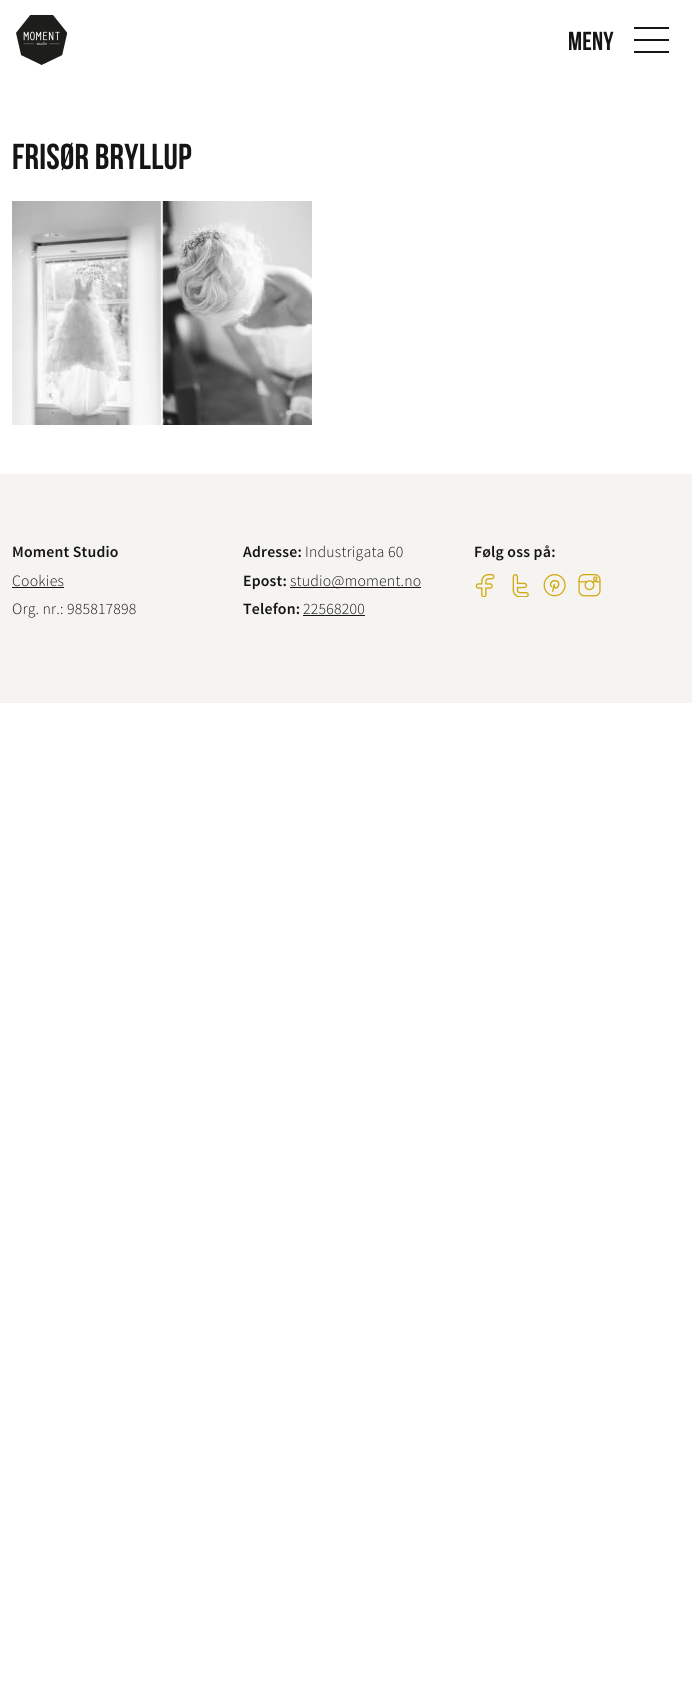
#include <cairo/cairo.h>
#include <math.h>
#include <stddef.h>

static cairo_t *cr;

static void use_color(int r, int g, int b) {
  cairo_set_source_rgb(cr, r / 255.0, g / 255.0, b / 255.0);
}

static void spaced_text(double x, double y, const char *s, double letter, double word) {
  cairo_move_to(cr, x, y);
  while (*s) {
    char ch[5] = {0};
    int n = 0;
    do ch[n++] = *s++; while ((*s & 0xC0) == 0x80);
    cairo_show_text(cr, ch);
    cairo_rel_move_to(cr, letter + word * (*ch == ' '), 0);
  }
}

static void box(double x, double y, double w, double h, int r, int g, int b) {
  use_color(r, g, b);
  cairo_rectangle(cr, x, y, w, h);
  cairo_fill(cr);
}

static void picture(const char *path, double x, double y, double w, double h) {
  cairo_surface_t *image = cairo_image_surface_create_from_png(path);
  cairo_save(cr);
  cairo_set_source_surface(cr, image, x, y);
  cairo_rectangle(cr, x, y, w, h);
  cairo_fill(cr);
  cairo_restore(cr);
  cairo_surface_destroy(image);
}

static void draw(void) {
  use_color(255, 255, 255);
  cairo_paint(cr);
  picture("img_01.png", 16, 15, 51, 50);
  box(634, 27, 35, 2, 21, 21, 21);
  box(634, 39, 35, 2, 21, 21, 21);
  box(634, 51, 35, 2, 21, 21, 21);
  picture("img_02.png", 12, 201, 300, 224);
  box(0, 474, 692, 229, 245, 244, 241);
  box(12, 587, 52, 1, 21, 21, 21);
  box(290, 587, 131, 1, 21, 21, 21);
  box(303, 615, 62, 1, 21, 21, 21);
  picture("img_03.png", 475, 574, 20, 23);
  picture("img_04.png", 512, 574, 17, 23);
  picture("img_05.png", 543, 574, 23, 23);
  picture("img_06.png", 578, 574, 23, 23);
  cairo_select_font_face(cr, "Bebas Neue", CAIRO_FONT_SLANT_NORMAL, CAIRO_FONT_WEIGHT_NORMAL);
  cairo_set_font_size(cr, 26);
  spaced_text(568, 50, "Meny", 0.2, 0);
  cairo_set_font_size(cr, 36);
  spaced_text(12, 169, "Frisør Bryllup", 0.2, 0);
  cairo_select_font_face(cr, "Source Sans Pro SemiBold", CAIRO_FONT_SLANT_NORMAL, CAIRO_FONT_WEIGHT_NORMAL);
  cairo_set_font_size(cr, 15.75);
  spaced_text(12, 557, "Moment Studio", 0.2, 0);
  cairo_select_font_face(cr, "Source Sans Pro Light", CAIRO_FONT_SLANT_NORMAL, CAIRO_FONT_WEIGHT_NORMAL);
  spaced_text(12, 586, "Cookies", 0.2, 0);
  spaced_text(12, 614, "Org. nr.: 985817898", 0.2, 0);
  cairo_select_font_face(cr, "Source Sans Pro SemiBold", CAIRO_FONT_SLANT_NORMAL, CAIRO_FONT_WEIGHT_NORMAL);
  spaced_text(243, 557, "Adresse:", 0.2, 0);
  cairo_select_font_face(cr, "Source Sans Pro Light", CAIRO_FONT_SLANT_NORMAL, CAIRO_FONT_WEIGHT_NORMAL);
  spaced_text(305, 557, "Industrigata 60", 0.2, 0);
  cairo_select_font_face(cr, "Source Sans Pro SemiBold", CAIRO_FONT_SLANT_NORMAL, CAIRO_FONT_WEIGHT_NORMAL);
  spaced_text(243, 586, "Epost:", 0.2, 0);
  cairo_select_font_face(cr, "Source Sans Pro Light", CAIRO_FONT_SLANT_NORMAL, CAIRO_FONT_WEIGHT_NORMAL);
  spaced_text(290, 586, "studio@moment.no", 0.2, 0);
  cairo_select_font_face(cr, "Source Sans Pro SemiBold", CAIRO_FONT_SLANT_NORMAL, CAIRO_FONT_WEIGHT_NORMAL);
  spaced_text(243, 614, "Telefon:", 0.2, 0);
  cairo_select_font_face(cr, "Source Sans Pro Light", CAIRO_FONT_SLANT_NORMAL, CAIRO_FONT_WEIGHT_NORMAL);
  spaced_text(303, 614, "22568200", 0.2, 0);
  cairo_select_font_face(cr, "Source Sans Pro SemiBold", CAIRO_FONT_SLANT_NORMAL, CAIRO_FONT_WEIGHT_NORMAL);
  spaced_text(474, 557, "Følg oss på:", 0.2, 0);
}

int main(void) {
  cairo_surface_t *surface = cairo_image_surface_create(CAIRO_FORMAT_RGB24, 692, 1692);
  cr = cairo_create(surface);
  cairo_font_options_t *options = cairo_font_options_create();
  cairo_font_options_set_hint_metrics(options, CAIRO_HINT_METRICS_OFF);
  cairo_font_options_set_hint_style(options, CAIRO_HINT_STYLE_NONE);
  cairo_set_font_options(cr, options);
  cairo_set_miter_limit(cr, 4);
  draw();
  cairo_surface_write_to_png(surface, "out.png");
  cairo_font_options_destroy(options);
  cairo_destroy(cr);
  cairo_surface_destroy(surface);
  return 0;
}
